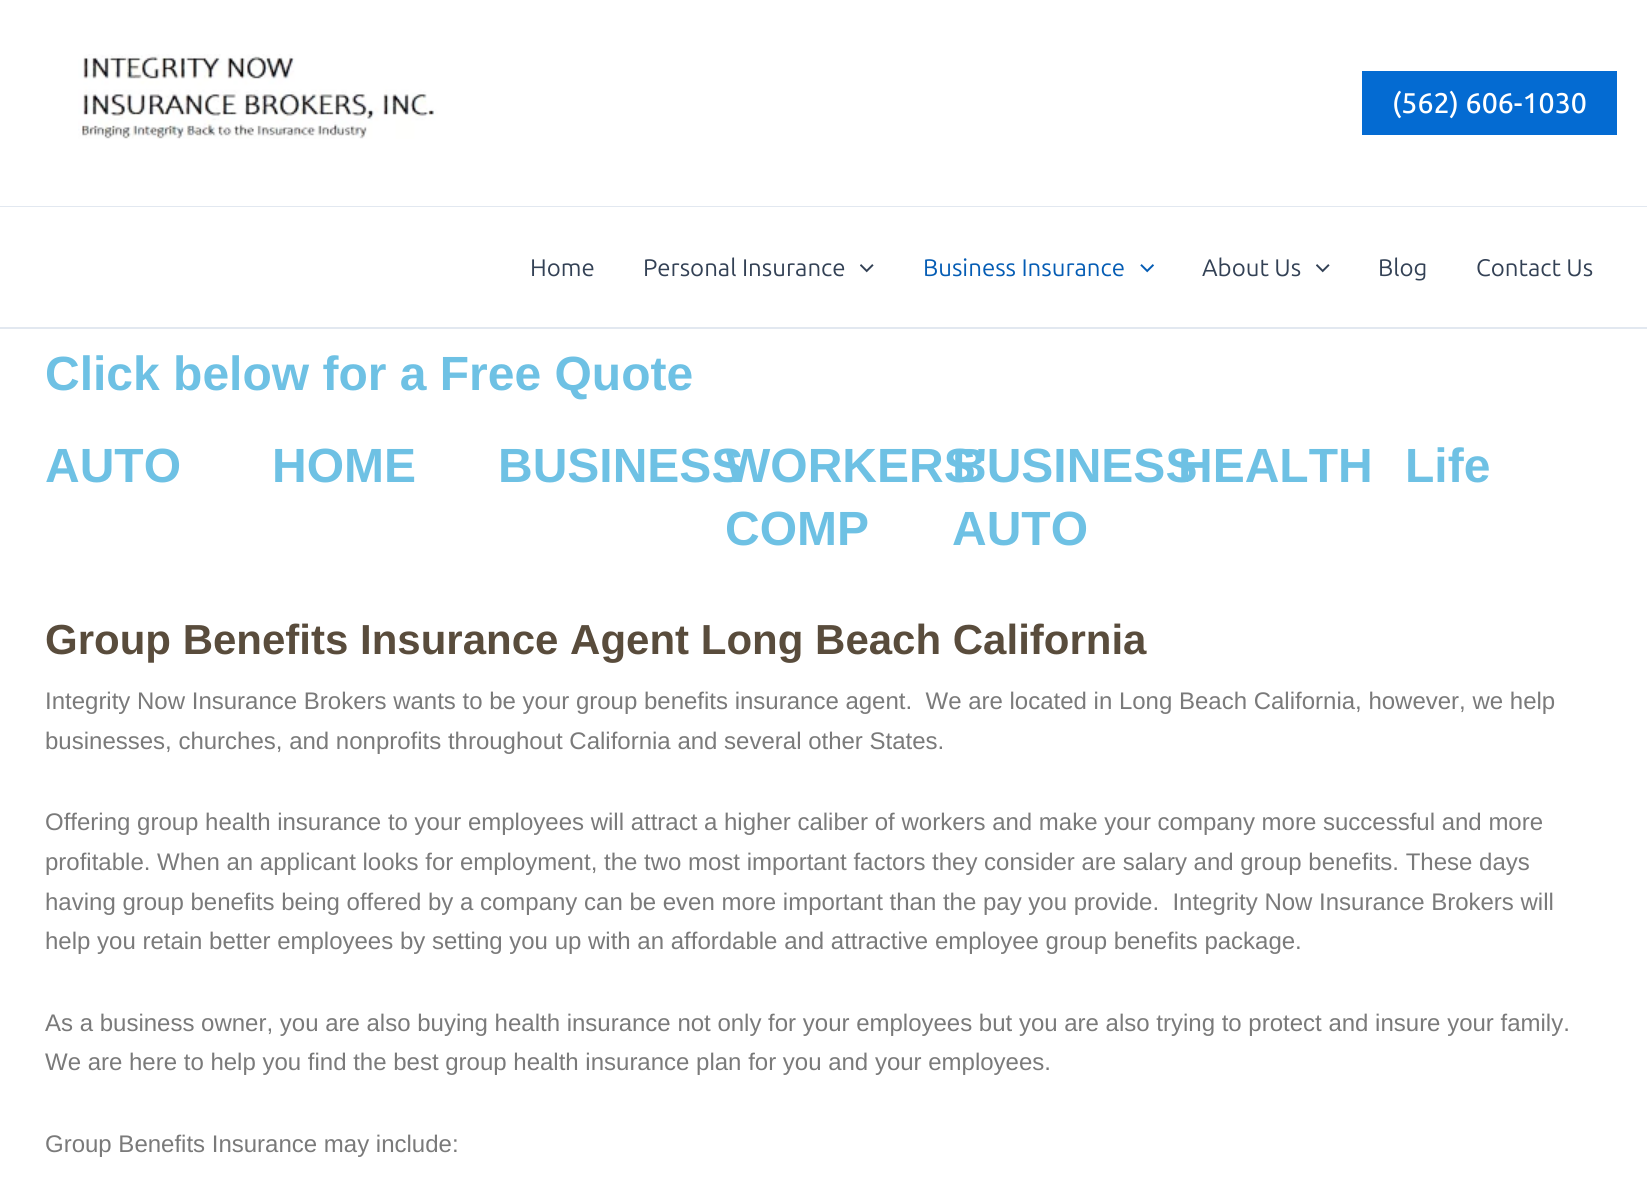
#include <cairo/cairo.h>
#include <math.h>
#include <stddef.h>

static cairo_t *cr;

static void use_color(int r, int g, int b) {
  cairo_set_source_rgb(cr, r / 255.0, g / 255.0, b / 255.0);
}

static void text(double x, double y, const char *s, const char *family, double size, int italic, int bold, int r, int g, int b) {
  cairo_select_font_face(cr, family, italic ? CAIRO_FONT_SLANT_ITALIC : CAIRO_FONT_SLANT_NORMAL,
    bold ? CAIRO_FONT_WEIGHT_BOLD : CAIRO_FONT_WEIGHT_NORMAL);
  cairo_set_font_size(cr, size);
  use_color(r, g, b);
  cairo_move_to(cr, x, y);
  cairo_show_text(cr, s);
}

static void box(double x, double y, double w, double h, int r, int g, int b) {
  use_color(r, g, b);
  cairo_rectangle(cr, x, y, w, h);
  cairo_fill(cr);
}

static void picture(const char *path, double x, double y, double w, double h) {
  cairo_surface_t *image = cairo_image_surface_create_from_png(path);
  cairo_save(cr);
  cairo_set_source_surface(cr, image, x, y);
  cairo_rectangle(cr, x, y, w, h);
  cairo_fill(cr);
  cairo_restore(cr);
  cairo_surface_destroy(image);
}

static void draw(void) {
  use_color(255, 255, 255);
  cairo_paint(cr);
  box(0, 206, 1647, 1, 226, 232, 240);
  picture("img_01.png", 78, 54, 360, 85);
  box(1362, 71, 255, 64, 4, 107, 210);
  box(0, 327, 1647, 2, 226, 232, 240);
  picture("img_02.png", 860, 264, 14, 9);
  picture("img_03.png", 1140, 264, 14, 9);
  picture("img_02.png", 1316, 264, 14, 9);
  text(1392, 113, "(562) 606-1030", "Ubuntu Medium", 28.5, 0, 0, 255, 255, 255);
  text(530, 276, "Home", "Ubuntu", 24, 0, 0, 51, 65, 85);
  text(643, 276, "Personal Insurance", "Ubuntu", 24, 0, 0, 51, 65, 85);
  text(923, 276, "Business Insurance", "Ubuntu", 24, 0, 0, 4, 92, 180);
  text(1202, 276, "About Us", "Ubuntu", 24, 0, 0, 51, 65, 85);
  text(1378, 276, "Blog", "Ubuntu", 24, 0, 0, 51, 65, 85);
  text(1476, 276, "Contact Us", "Ubuntu", 24, 0, 0, 51, 65, 85);
  text(45, 390, "Click below for a Free Quote", "Liberation Sans", 48, 0, 1, 110, 193, 228);
  text(45, 482, "AUTO", "Liberation Sans", 48, 0, 1, 110, 193, 228);
  text(272, 482, "HOME", "Liberation Sans", 48, 0, 1, 110, 193, 228);
  text(498, 482, "BUSINESS", "Liberation Sans", 48, 0, 1, 110, 193, 228);
  text(725, 482, "WORKERS'", "Liberation Sans", 48, 0, 1, 110, 193, 228);
  text(725, 545, "COMP", "Liberation Sans", 48, 0, 1, 110, 193, 228);
  text(952, 482, "BUSINESS", "Liberation Sans", 48, 0, 1, 110, 193, 228);
  text(952, 545, "AUTO", "Liberation Sans", 48, 0, 1, 110, 193, 228);
  text(1178, 482, "HEALTH", "Liberation Sans", 48, 0, 1, 110, 193, 228);
  text(1405, 482, "Life", "Liberation Sans", 48, 0, 1, 110, 193, 228);
  text(45, 654, "Group Benefits Insurance Agent Long Beach California", "Liberation Sans", 42, 0, 1, 89, 76, 60);
  text(45, 709, "Integrity Now Insurance Brokers wants to be your group benefits insurance agent.  We are located in Long Beach California, however, we help", "Liberation Sans", 24, 0, 0, 122, 122, 122);
  text(45, 749, "businesses, churches, and nonprofits throughout California and several other States.", "Liberation Sans", 24, 0, 0, 122, 122, 122);
  text(45, 830, "Offering group health insurance to your employees will attract a higher caliber of workers and make your company more successful and more", "Liberation Sans", 24, 0, 0, 122, 122, 122);
  text(45, 870, "profitable. When an applicant looks for employment, the two most important factors they consider are salary and group benefits. These days", "Liberation Sans", 24, 0, 0, 122, 122, 122);
  text(45, 910, "having group benefits being offered by a company can be even more important than the pay you provide.  Integrity Now Insurance Brokers will", "Liberation Sans", 24, 0, 0, 122, 122, 122);
  text(45, 949, "help you retain better employees by setting you up with an affordable and attractive employee group benefits package.", "Liberation Sans", 24, 0, 0, 122, 122, 122);
  text(45, 1031, "As a business owner, you are also buying health insurance not only for your employees but you are also trying to protect and insure your family.", "Liberation Sans", 24, 0, 0, 122, 122, 122);
  text(45, 1070, "We are here to help you find the best group health insurance plan for you and your employees.", "Liberation Sans", 24, 0, 0, 122, 122, 122);
  text(45, 1152, "Group Benefits Insurance may include:", "Liberation Sans", 24, 0, 0, 122, 122, 122);
}

int main(void) {
  cairo_surface_t *surface = cairo_image_surface_create(CAIRO_FORMAT_RGB24, 1647, 1179);
  cr = cairo_create(surface);
  cairo_font_options_t *options = cairo_font_options_create();
  cairo_font_options_set_hint_metrics(options, CAIRO_HINT_METRICS_OFF);
  cairo_font_options_set_hint_style(options, CAIRO_HINT_STYLE_NONE);
  cairo_set_font_options(cr, options);
  cairo_set_miter_limit(cr, 4);
  draw();
  cairo_surface_write_to_png(surface, "out.png");
  cairo_font_options_destroy(options);
  cairo_destroy(cr);
  cairo_surface_destroy(surface);
  return 0;
}
